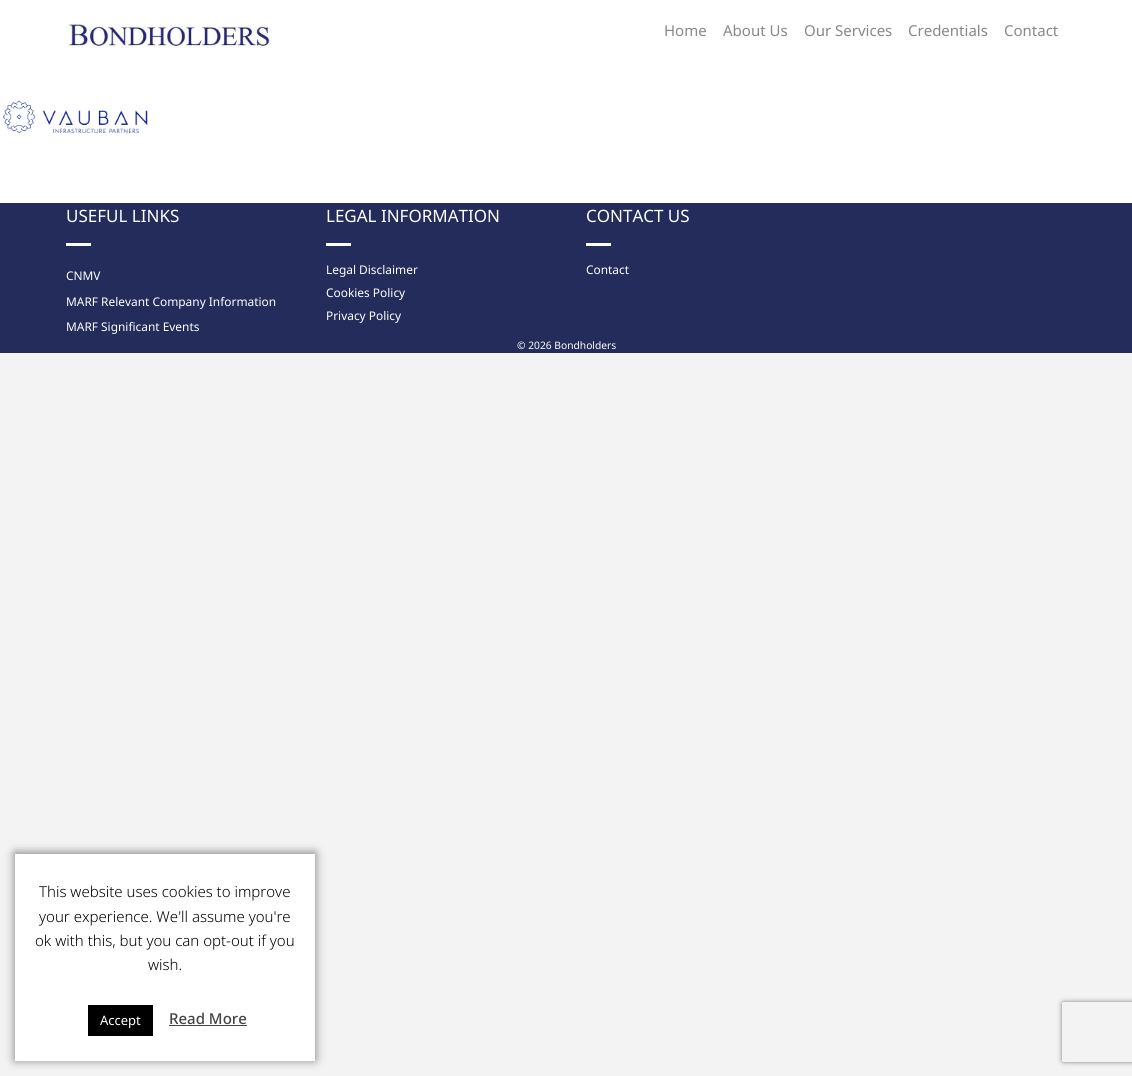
#include <cairo/cairo.h>
#include <math.h>
#include <stddef.h>

static cairo_t *cr;

static void use_color(int r, int g, int b) {
  cairo_set_source_rgb(cr, r / 255.0, g / 255.0, b / 255.0);
}

static void text(double x, double y, const char *s, const char *family, double size, int italic, int bold, int r, int g, int b) {
  cairo_select_font_face(cr, family, italic ? CAIRO_FONT_SLANT_ITALIC : CAIRO_FONT_SLANT_NORMAL,
    bold ? CAIRO_FONT_WEIGHT_BOLD : CAIRO_FONT_WEIGHT_NORMAL);
  cairo_set_font_size(cr, size);
  use_color(r, g, b);
  cairo_move_to(cr, x, y);
  cairo_show_text(cr, s);
}

static void box(double x, double y, double w, double h, int r, int g, int b) {
  use_color(r, g, b);
  cairo_rectangle(cr, x, y, w, h);
  cairo_fill(cr);
}

static void round_rect(double x, double y, double w, double h, double r) {
  cairo_new_sub_path(cr);
  cairo_arc(cr, x + w - r, y + h - r, r, 0, M_PI / 2);
  cairo_arc(cr, x + r, y + h - r, r, M_PI / 2, M_PI);
  cairo_arc(cr, x + r, y + r, r, M_PI, 1.5 * M_PI);
  cairo_arc(cr, x + w - r, y + r, r, 1.5 * M_PI, 2 * M_PI);
  cairo_close_path(cr);
}

static void shadow(double x, double y, double w, double h, double r, double blur, double alpha) {
  cairo_push_group_with_content(cr, CAIRO_CONTENT_ALPHA);
  cairo_set_operator(cr, CAIRO_OPERATOR_SOURCE);
  for (int i = 15; i >= -15 && fmin(w, h) + blur * i / 3 > 0; i -= 2) {
    double e = blur * i / 6;
    cairo_set_source_rgba(cr, 0, 0, 0, alpha * erfc((i - 1) / 8.5) / 2);
    round_rect(x - e, y - e, w + 2 * e, h + 2 * e, fmax(0, fmin(r + e + blur * .6, fmin(w, h) / 2 + e)));
    cairo_fill(cr);
  }
  cairo_pattern_t *soft = cairo_pop_group(cr);
  cairo_mask(cr, soft);
  cairo_pattern_destroy(soft);
}

static void picture(const char *path, double x, double y, double w, double h) {
  cairo_surface_t *image = cairo_image_surface_create_from_png(path);
  cairo_save(cr);
  cairo_set_source_surface(cr, image, x, y);
  cairo_rectangle(cr, x, y, w, h);
  cairo_fill(cr);
  cairo_restore(cr);
  cairo_surface_destroy(image);
}

static void draw(void) {
  use_color(243, 243, 243);
  cairo_paint(cr);
  box(0, 0, 1132, 203, 255, 255, 255);
  picture("img_01.png", 2, 100, 146, 34);
  picture("img_02.png", 68, 22, 203, 27);
  box(0, 203, 1132, 150, 35, 44, 90);
  box(66, 243, 25, 3, 255, 255, 255);
  box(326, 243, 25, 3, 255, 255, 255);
  box(586, 243, 25, 3, 255, 255, 255);
  use_color(0, 0, 0);
  shadow(15, 853, 300, 207, 0, 5, 0.5);
  box(15, 854, 300, 207, 255, 255, 255);
  box(88, 1005, 65, 31, 0, 0, 0);
  box(169, 1025, 78, 1, 68, 68, 68);
  cairo_save(cr);
  cairo_set_fill_rule(cr, CAIRO_FILL_RULE_EVEN_ODD);
  cairo_new_path(cr);
  cairo_move_to(cr, 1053, 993);
  cairo_line_to(cr, 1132, 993);
  cairo_line_to(cr, 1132, 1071);
  cairo_line_to(cr, 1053, 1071);
  cairo_close_path(cr);
  cairo_move_to(cr, 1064, 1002);
  cairo_line_to(cr, 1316, 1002);
  cairo_curve_to(cr, 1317, 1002, 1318, 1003, 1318, 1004);
  cairo_line_to(cr, 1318, 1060);
  cairo_curve_to(cr, 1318, 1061, 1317, 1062, 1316, 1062);
  cairo_line_to(cr, 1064, 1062);
  cairo_curve_to(cr, 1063, 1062, 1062, 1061, 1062, 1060);
  cairo_line_to(cr, 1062, 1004);
  cairo_curve_to(cr, 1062, 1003, 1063, 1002, 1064, 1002);
  cairo_close_path(cr);
  cairo_clip(cr);
  use_color(128, 128, 128);
  shadow(1062, 1002, 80, 60, 2, 2.5, 1);
  cairo_restore(cr);
  text(664, 36, "Home", "Noto Sans", 15, 0, 0, 134, 136, 138);
  text(723, 36, "About Us", "Noto Sans", 15, 0, 0, 134, 136, 138);
  text(804, 36, "Our Services", "Noto Sans", 15, 0, 0, 134, 136, 138);
  text(908, 36, "Credentials", "Noto Sans", 15, 0, 0, 134, 136, 138);
  text(1004, 36, "Contact", "Noto Sans", 15, 0, 0, 134, 136, 138);
  text(66, 222, "USEFUL LINKS", "Noto Sans", 17, 0, 0, 255, 255, 255);
  text(66, 280, "CNMV", "Noto Sans", 11.9, 0, 0, 255, 255, 255);
  text(66, 306, "MARF Relevant Company Information", "Noto Sans", 11.9, 0, 0, 255, 255, 255);
  text(66, 331, "MARF Significant Events", "Noto Sans", 11.9, 0, 0, 255, 255, 255);
  text(326, 222, "LEGAL INFORMATION", "Noto Sans", 17, 0, 0, 255, 255, 255);
  text(326, 274, "Legal Disclaimer", "Noto Sans", 11.9, 0, 0, 255, 255, 255);
  text(326, 297, "Cookies Policy", "Noto Sans", 11.9, 0, 0, 255, 255, 255);
  text(326, 320, "Privacy Policy", "Noto Sans", 11.9, 0, 0, 255, 255, 255);
  text(586, 222, "CONTACT US", "Noto Sans", 17, 0, 0, 255, 255, 255);
  text(586, 274, "Contact", "Noto Sans", 11.9, 0, 0, 255, 255, 255);
  text(517, 349, "© 2026 Bondholders", "Noto Sans", 10.25, 0, 0, 255, 255, 255);
  text(39, 897, "This website uses cookies to improve", "Noto Sans Light", 15, 0, 0, 0, 0, 0);
  text(39, 922, "your experience. We'll assume you're", "Noto Sans Light", 15, 0, 0, 0, 0, 0);
  text(35, 946, "ok with this, but you can opt-out if you", "Noto Sans Light", 15, 0, 0, 0, 0, 0);
  text(148, 970, "wish.", "Noto Sans Light", 15, 0, 0, 0, 0, 0);
  text(100, 1025, "Accept", "Noto Sans", 13, 0, 0, 255, 255, 255);
  text(169, 1024, "Read More", "Noto Sans Medium", 15, 0, 0, 68, 68, 68);
}

int main(void) {
  cairo_surface_t *surface = cairo_image_surface_create(CAIRO_FORMAT_RGB24, 1132, 1076);
  cr = cairo_create(surface);
  cairo_font_options_t *options = cairo_font_options_create();
  cairo_font_options_set_hint_metrics(options, CAIRO_HINT_METRICS_OFF);
  cairo_font_options_set_hint_style(options, CAIRO_HINT_STYLE_NONE);
  cairo_set_font_options(cr, options);
  cairo_set_miter_limit(cr, 4);
  draw();
  cairo_surface_write_to_png(surface, "out.png");
  cairo_font_options_destroy(options);
  cairo_destroy(cr);
  cairo_surface_destroy(surface);
  return 0;
}
